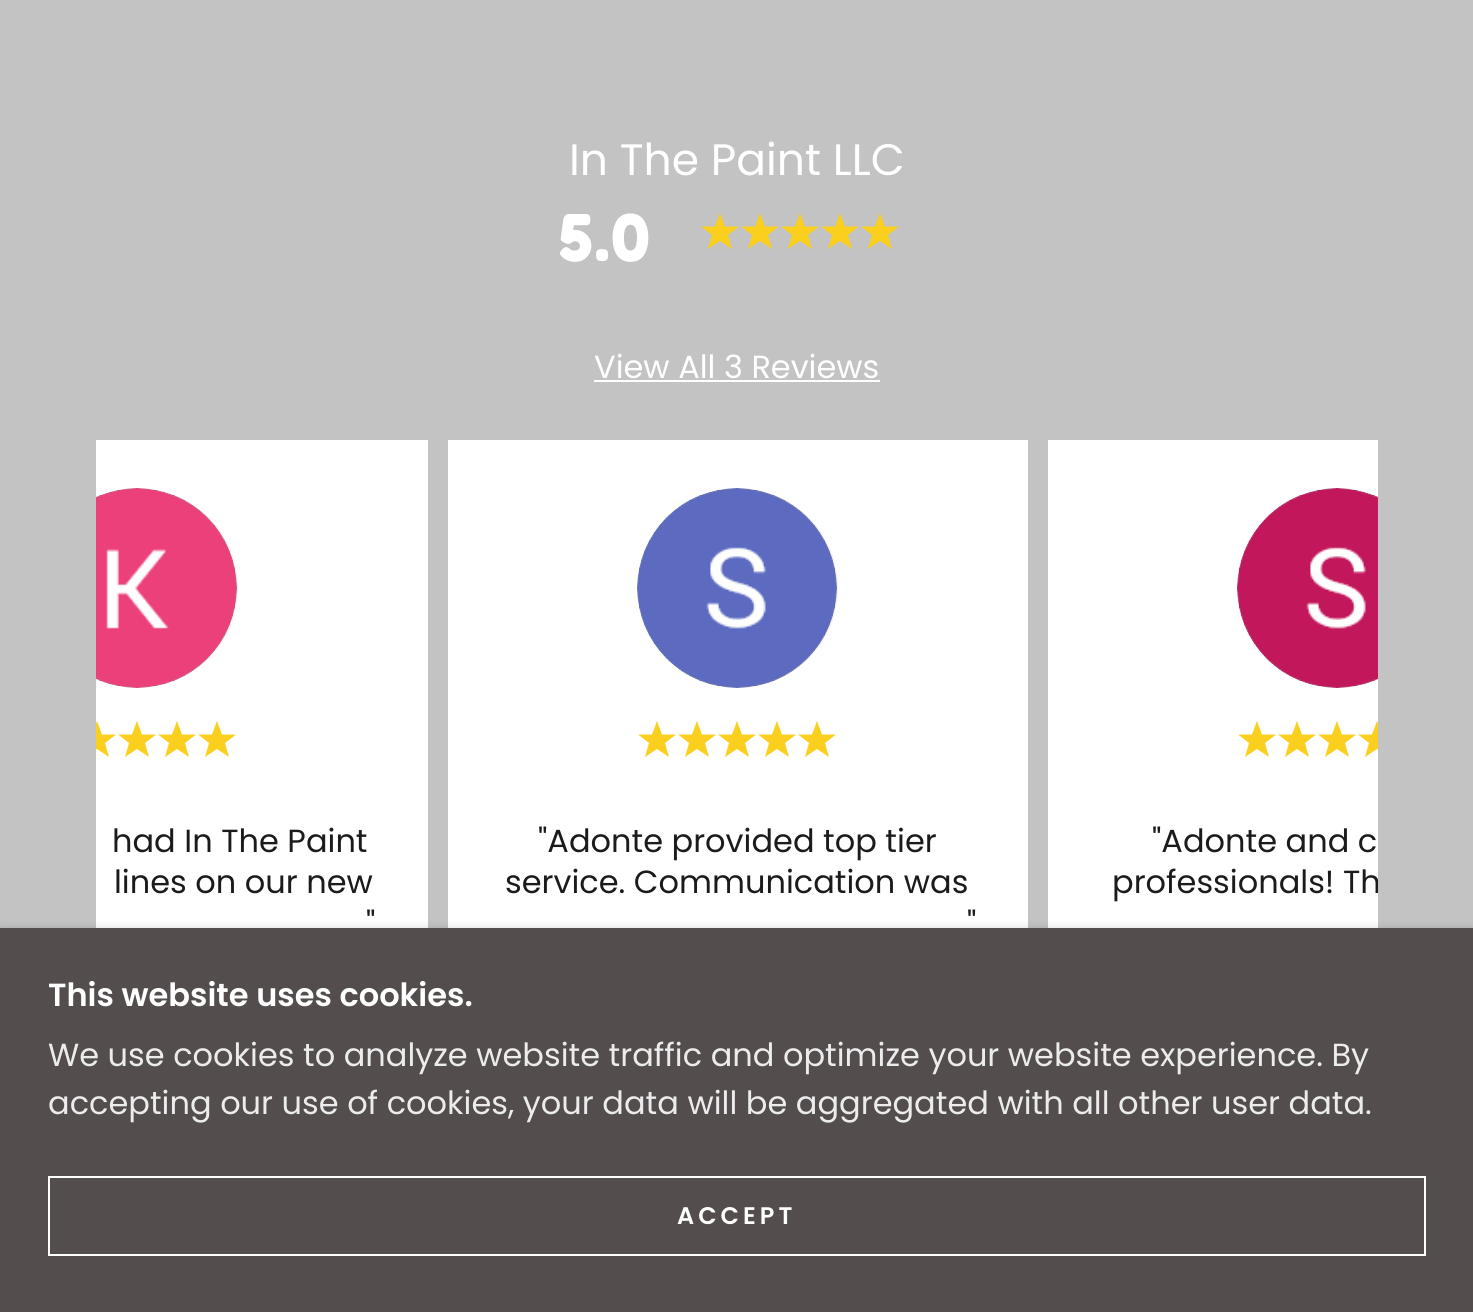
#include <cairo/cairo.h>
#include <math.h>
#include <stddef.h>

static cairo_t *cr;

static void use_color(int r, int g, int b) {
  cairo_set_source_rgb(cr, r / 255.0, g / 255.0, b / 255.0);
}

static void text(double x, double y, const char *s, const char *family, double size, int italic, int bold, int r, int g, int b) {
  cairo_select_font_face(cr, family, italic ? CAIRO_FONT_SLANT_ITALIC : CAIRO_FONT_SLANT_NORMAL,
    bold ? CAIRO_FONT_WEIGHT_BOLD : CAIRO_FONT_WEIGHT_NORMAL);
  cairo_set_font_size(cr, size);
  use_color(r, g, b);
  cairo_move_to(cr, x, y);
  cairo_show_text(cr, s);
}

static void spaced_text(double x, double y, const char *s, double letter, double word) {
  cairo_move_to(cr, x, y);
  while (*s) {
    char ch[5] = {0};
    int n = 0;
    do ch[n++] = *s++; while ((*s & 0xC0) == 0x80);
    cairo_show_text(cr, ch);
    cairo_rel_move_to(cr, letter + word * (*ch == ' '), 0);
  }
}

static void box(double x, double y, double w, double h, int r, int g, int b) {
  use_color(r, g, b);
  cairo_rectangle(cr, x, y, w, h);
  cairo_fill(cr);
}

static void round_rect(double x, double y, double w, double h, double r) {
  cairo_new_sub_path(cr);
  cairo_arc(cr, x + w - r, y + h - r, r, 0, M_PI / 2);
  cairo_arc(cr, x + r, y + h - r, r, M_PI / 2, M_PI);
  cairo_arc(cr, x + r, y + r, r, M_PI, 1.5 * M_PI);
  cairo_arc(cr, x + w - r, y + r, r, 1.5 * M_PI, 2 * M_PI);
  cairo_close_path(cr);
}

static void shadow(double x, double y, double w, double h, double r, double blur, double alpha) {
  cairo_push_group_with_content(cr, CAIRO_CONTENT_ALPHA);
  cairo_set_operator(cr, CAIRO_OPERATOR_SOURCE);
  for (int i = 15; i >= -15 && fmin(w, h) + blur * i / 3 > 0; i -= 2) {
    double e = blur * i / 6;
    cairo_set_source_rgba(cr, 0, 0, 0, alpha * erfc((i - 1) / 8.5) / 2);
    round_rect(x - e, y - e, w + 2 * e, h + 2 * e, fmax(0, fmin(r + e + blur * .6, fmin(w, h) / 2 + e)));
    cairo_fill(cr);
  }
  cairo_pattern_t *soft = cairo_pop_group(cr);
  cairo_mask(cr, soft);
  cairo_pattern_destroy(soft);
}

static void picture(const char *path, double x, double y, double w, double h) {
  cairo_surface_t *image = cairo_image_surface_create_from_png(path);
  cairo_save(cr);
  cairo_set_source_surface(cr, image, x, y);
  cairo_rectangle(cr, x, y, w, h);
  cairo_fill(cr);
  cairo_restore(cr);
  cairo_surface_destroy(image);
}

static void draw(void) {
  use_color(195, 195, 195);
  cairo_paint(cr);
  use_color(251, 207, 30);
  cairo_new_path(cr);
  cairo_move_to(cr, 720, 213);
  cairo_line_to(cr, 725, 226.5);
  cairo_line_to(cr, 739, 226.5);
  cairo_line_to(cr, 728, 235);
  cairo_line_to(cr, 732, 249);
  cairo_line_to(cr, 720, 241);
  cairo_line_to(cr, 708, 249);
  cairo_line_to(cr, 712, 235);
  cairo_line_to(cr, 701, 226.5);
  cairo_line_to(cr, 715, 226.5);
  cairo_close_path(cr);
  cairo_fill(cr);
  cairo_new_path(cr);
  cairo_move_to(cr, 760, 213);
  cairo_line_to(cr, 765, 226.5);
  cairo_line_to(cr, 779, 226.5);
  cairo_line_to(cr, 768, 235);
  cairo_line_to(cr, 772, 249);
  cairo_line_to(cr, 760, 241);
  cairo_line_to(cr, 748, 249);
  cairo_line_to(cr, 752, 235);
  cairo_line_to(cr, 741, 226.5);
  cairo_line_to(cr, 755, 226.5);
  cairo_close_path(cr);
  cairo_fill(cr);
  cairo_new_path(cr);
  cairo_move_to(cr, 800, 213);
  cairo_line_to(cr, 805, 226.5);
  cairo_line_to(cr, 819, 226.5);
  cairo_line_to(cr, 808, 235);
  cairo_line_to(cr, 812, 249);
  cairo_line_to(cr, 800, 241);
  cairo_line_to(cr, 788, 249);
  cairo_line_to(cr, 792, 235);
  cairo_line_to(cr, 781, 226.5);
  cairo_line_to(cr, 795, 226.5);
  cairo_close_path(cr);
  cairo_fill(cr);
  cairo_new_path(cr);
  cairo_move_to(cr, 840, 213);
  cairo_line_to(cr, 845, 226.5);
  cairo_line_to(cr, 859, 226.5);
  cairo_line_to(cr, 848, 235);
  cairo_line_to(cr, 852, 249);
  cairo_line_to(cr, 840, 241);
  cairo_line_to(cr, 828, 249);
  cairo_line_to(cr, 832, 235);
  cairo_line_to(cr, 821, 226.5);
  cairo_line_to(cr, 835, 226.5);
  cairo_close_path(cr);
  cairo_fill(cr);
  cairo_new_path(cr);
  cairo_move_to(cr, 880, 213);
  cairo_line_to(cr, 885, 226.5);
  cairo_line_to(cr, 899, 226.5);
  cairo_line_to(cr, 888, 235);
  cairo_line_to(cr, 892, 249);
  cairo_line_to(cr, 880, 241);
  cairo_line_to(cr, 868, 249);
  cairo_line_to(cr, 872, 235);
  cairo_line_to(cr, 861, 226.5);
  cairo_line_to(cr, 875, 226.5);
  cairo_close_path(cr);
  cairo_fill(cr);
  box(594, 380, 286, 2, 255, 255, 255);
  box(96, 440, 332, 488, 255, 255, 255);
  cairo_save(cr);
  cairo_rectangle(cr, 96, 440, 1282, 742);
  cairo_clip(cr);
  use_color(243, 243, 243);
  cairo_arc(cr, 138, 588, 100, 0, 2 * M_PI);
  cairo_fill(cr);
  cairo_restore(cr);
  picture("img_01.png", 96, 488, 141, 200);
  cairo_save(cr);
  cairo_rectangle(cr, 96, 720, 22, 40);
  cairo_clip(cr);
  use_color(251, 207, 30);
  cairo_new_path(cr);
  cairo_move_to(cr, 97, 721);
  cairo_line_to(cr, 102, 734.5);
  cairo_line_to(cr, 116, 734.5);
  cairo_line_to(cr, 105, 743);
  cairo_line_to(cr, 109, 757);
  cairo_line_to(cr, 97, 749);
  cairo_line_to(cr, 85, 757);
  cairo_line_to(cr, 89, 743);
  cairo_line_to(cr, 78, 734.5);
  cairo_line_to(cr, 92, 734.5);
  cairo_close_path(cr);
  cairo_fill(cr);
  cairo_restore(cr);
  use_color(251, 207, 30);
  cairo_new_path(cr);
  cairo_move_to(cr, 137, 721);
  cairo_line_to(cr, 142, 734.5);
  cairo_line_to(cr, 156, 734.5);
  cairo_line_to(cr, 145, 743);
  cairo_line_to(cr, 149, 757);
  cairo_line_to(cr, 137, 749);
  cairo_line_to(cr, 125, 757);
  cairo_line_to(cr, 129, 743);
  cairo_line_to(cr, 118, 734.5);
  cairo_line_to(cr, 132, 734.5);
  cairo_close_path(cr);
  cairo_fill(cr);
  cairo_new_path(cr);
  cairo_move_to(cr, 177, 721);
  cairo_line_to(cr, 182, 734.5);
  cairo_line_to(cr, 196, 734.5);
  cairo_line_to(cr, 185, 743);
  cairo_line_to(cr, 189, 757);
  cairo_line_to(cr, 177, 749);
  cairo_line_to(cr, 165, 757);
  cairo_line_to(cr, 169, 743);
  cairo_line_to(cr, 158, 734.5);
  cairo_line_to(cr, 172, 734.5);
  cairo_close_path(cr);
  cairo_fill(cr);
  cairo_new_path(cr);
  cairo_move_to(cr, 217, 721);
  cairo_line_to(cr, 222, 734.5);
  cairo_line_to(cr, 236, 734.5);
  cairo_line_to(cr, 225, 743);
  cairo_line_to(cr, 229, 757);
  cairo_line_to(cr, 217, 749);
  cairo_line_to(cr, 205, 757);
  cairo_line_to(cr, 209, 743);
  cairo_line_to(cr, 198, 734.5);
  cairo_line_to(cr, 212, 734.5);
  cairo_close_path(cr);
  cairo_fill(cr);
  box(448, 440, 580, 488, 255, 255, 255);
  use_color(243, 243, 243);
  cairo_arc(cr, 738, 588, 100, 0, 2 * M_PI);
  cairo_fill(cr);
  picture("img_02.png", 637, 488, 200, 200);
  use_color(251, 207, 30);
  cairo_new_path(cr);
  cairo_move_to(cr, 657, 721);
  cairo_line_to(cr, 662, 734.5);
  cairo_line_to(cr, 676, 734.5);
  cairo_line_to(cr, 665, 743);
  cairo_line_to(cr, 669, 757);
  cairo_line_to(cr, 657, 749);
  cairo_line_to(cr, 645, 757);
  cairo_line_to(cr, 649, 743);
  cairo_line_to(cr, 638, 734.5);
  cairo_line_to(cr, 652, 734.5);
  cairo_close_path(cr);
  cairo_fill(cr);
  cairo_new_path(cr);
  cairo_move_to(cr, 697, 721);
  cairo_line_to(cr, 702, 734.5);
  cairo_line_to(cr, 716, 734.5);
  cairo_line_to(cr, 705, 743);
  cairo_line_to(cr, 709, 757);
  cairo_line_to(cr, 697, 749);
  cairo_line_to(cr, 685, 757);
  cairo_line_to(cr, 689, 743);
  cairo_line_to(cr, 678, 734.5);
  cairo_line_to(cr, 692, 734.5);
  cairo_close_path(cr);
  cairo_fill(cr);
  cairo_new_path(cr);
  cairo_move_to(cr, 737, 721);
  cairo_line_to(cr, 742, 734.5);
  cairo_line_to(cr, 756, 734.5);
  cairo_line_to(cr, 745, 743);
  cairo_line_to(cr, 749, 757);
  cairo_line_to(cr, 737, 749);
  cairo_line_to(cr, 725, 757);
  cairo_line_to(cr, 729, 743);
  cairo_line_to(cr, 718, 734.5);
  cairo_line_to(cr, 732, 734.5);
  cairo_close_path(cr);
  cairo_fill(cr);
  cairo_new_path(cr);
  cairo_move_to(cr, 777, 721);
  cairo_line_to(cr, 782, 734.5);
  cairo_line_to(cr, 796, 734.5);
  cairo_line_to(cr, 785, 743);
  cairo_line_to(cr, 789, 757);
  cairo_line_to(cr, 777, 749);
  cairo_line_to(cr, 765, 757);
  cairo_line_to(cr, 769, 743);
  cairo_line_to(cr, 758, 734.5);
  cairo_line_to(cr, 772, 734.5);
  cairo_close_path(cr);
  cairo_fill(cr);
  cairo_new_path(cr);
  cairo_move_to(cr, 817, 721);
  cairo_line_to(cr, 822, 734.5);
  cairo_line_to(cr, 836, 734.5);
  cairo_line_to(cr, 825, 743);
  cairo_line_to(cr, 829, 757);
  cairo_line_to(cr, 817, 749);
  cairo_line_to(cr, 805, 757);
  cairo_line_to(cr, 809, 743);
  cairo_line_to(cr, 798, 734.5);
  cairo_line_to(cr, 812, 734.5);
  cairo_close_path(cr);
  cairo_fill(cr);
  box(1048, 440, 330, 488, 255, 255, 255);
  cairo_save(cr);
  cairo_rectangle(cr, 96, 440, 1282, 742);
  cairo_clip(cr);
  use_color(243, 243, 243);
  cairo_arc(cr, 1338, 588, 100, 0, 2 * M_PI);
  cairo_fill(cr);
  cairo_restore(cr);
  picture("img_03.png", 1237, 488, 141, 200);
  use_color(251, 207, 30);
  cairo_new_path(cr);
  cairo_move_to(cr, 1257, 721);
  cairo_line_to(cr, 1262, 734.5);
  cairo_line_to(cr, 1276, 734.5);
  cairo_line_to(cr, 1265, 743);
  cairo_line_to(cr, 1269, 757);
  cairo_line_to(cr, 1257, 749);
  cairo_line_to(cr, 1245, 757);
  cairo_line_to(cr, 1249, 743);
  cairo_line_to(cr, 1238, 734.5);
  cairo_line_to(cr, 1252, 734.5);
  cairo_close_path(cr);
  cairo_fill(cr);
  cairo_new_path(cr);
  cairo_move_to(cr, 1297, 721);
  cairo_line_to(cr, 1302, 734.5);
  cairo_line_to(cr, 1316, 734.5);
  cairo_line_to(cr, 1305, 743);
  cairo_line_to(cr, 1309, 757);
  cairo_line_to(cr, 1297, 749);
  cairo_line_to(cr, 1285, 757);
  cairo_line_to(cr, 1289, 743);
  cairo_line_to(cr, 1278, 734.5);
  cairo_line_to(cr, 1292, 734.5);
  cairo_close_path(cr);
  cairo_fill(cr);
  cairo_new_path(cr);
  cairo_move_to(cr, 1337, 721);
  cairo_line_to(cr, 1342, 734.5);
  cairo_line_to(cr, 1356, 734.5);
  cairo_line_to(cr, 1345, 743);
  cairo_line_to(cr, 1349, 757);
  cairo_line_to(cr, 1337, 749);
  cairo_line_to(cr, 1325, 757);
  cairo_line_to(cr, 1329, 743);
  cairo_line_to(cr, 1318, 734.5);
  cairo_line_to(cr, 1332, 734.5);
  cairo_close_path(cr);
  cairo_fill(cr);
  cairo_save(cr);
  cairo_rectangle(cr, 1358, 720, 20, 40);
  cairo_clip(cr);
  cairo_new_path(cr);
  cairo_move_to(cr, 1377, 721);
  cairo_line_to(cr, 1382, 734.5);
  cairo_line_to(cr, 1396, 734.5);
  cairo_line_to(cr, 1385, 743);
  cairo_line_to(cr, 1389, 757);
  cairo_line_to(cr, 1377, 749);
  cairo_line_to(cr, 1365, 757);
  cairo_line_to(cr, 1369, 743);
  cairo_line_to(cr, 1358, 734.5);
  cairo_line_to(cr, 1372, 734.5);
  cairo_close_path(cr);
  cairo_fill(cr);
  cairo_restore(cr);
  use_color(0, 0, 0);
  shadow(0, 932, 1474, 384, 0, 6, 0.3);
  box(0, 928, 1473, 384, 84, 77, 77);
  cairo_rectangle(cr, 49, 1177, 1376, 78);
  use_color(255, 255, 255);
  cairo_stroke(cr);
  text(569, 175, "In The Paint LLC", "Poppins", 44, 0, 0, 255, 255, 255);
  cairo_select_font_face(cr, "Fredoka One", CAIRO_FONT_SLANT_NORMAL, CAIRO_FONT_WEIGHT_NORMAL);
  cairo_set_font_size(cr, 64);
  spaced_text(559, 261, "5.0", 1.5, 0);
  text(594, 378, "View All 3 Reviews", "Poppins", 32, 0, 0, 255, 255, 255);
  text(112, 852, "had In The Paint", "Poppins", 32, 0, 0, 27, 27, 27);
  text(114, 893, "lines on our new", "Poppins", 32, 0, 0, 27, 27, 27);
  text(366, 935, "\"", "Poppins", 32, 0, 0, 27, 27, 27);
  text(538, 852, "\"Adonte provided top tier", "Poppins", 32, 0, 0, 27, 27, 27);
  text(505, 893, "service. Communication was", "Poppins", 32, 0, 0, 27, 27, 27);
  text(967, 935, "\"", "Poppins", 32, 0, 0, 27, 27, 27);
  text(1152, 852, "\"Adonte and c", "Poppins", 32, 0, 0, 27, 27, 27);
  cairo_save(cr);
  cairo_rectangle(cr, 1048, 440, 330, 742);
  cairo_clip(cr);
  text(1112, 893, "professionals! Th", "Poppins", 32, 0, 0, 27, 27, 27);
  cairo_restore(cr);
  text(48, 1006, "This website uses cookies.", "Poppins SemiBold", 32, 0, 0, 255, 255, 255);
  text(48, 1066, "We use cookies to analyze website traffic and optimize your website experience. By", "Poppins", 32, 0, 0, 236, 236, 236);
  text(48, 1114, "accepting our use of cookies, your data will be aggregated with all other user data.", "Poppins", 32, 0, 0, 236, 236, 236);
  cairo_select_font_face(cr, "Poppins SemiBold", CAIRO_FONT_SLANT_NORMAL, CAIRO_FONT_WEIGHT_NORMAL);
  cairo_set_font_size(cr, 24);
  use_color(255, 255, 255);
  spaced_text(677, 1224, "ACCEPT", 4, 0);
}

int main(void) {
  cairo_surface_t *surface = cairo_image_surface_create(CAIRO_FORMAT_RGB24, 1473, 1312);
  cr = cairo_create(surface);
  cairo_font_options_t *options = cairo_font_options_create();
  cairo_font_options_set_hint_metrics(options, CAIRO_HINT_METRICS_OFF);
  cairo_font_options_set_hint_style(options, CAIRO_HINT_STYLE_NONE);
  cairo_set_font_options(cr, options);
  cairo_set_miter_limit(cr, 4);
  draw();
  cairo_surface_write_to_png(surface, "out.png");
  cairo_font_options_destroy(options);
  cairo_destroy(cr);
  cairo_surface_destroy(surface);
  return 0;
}
